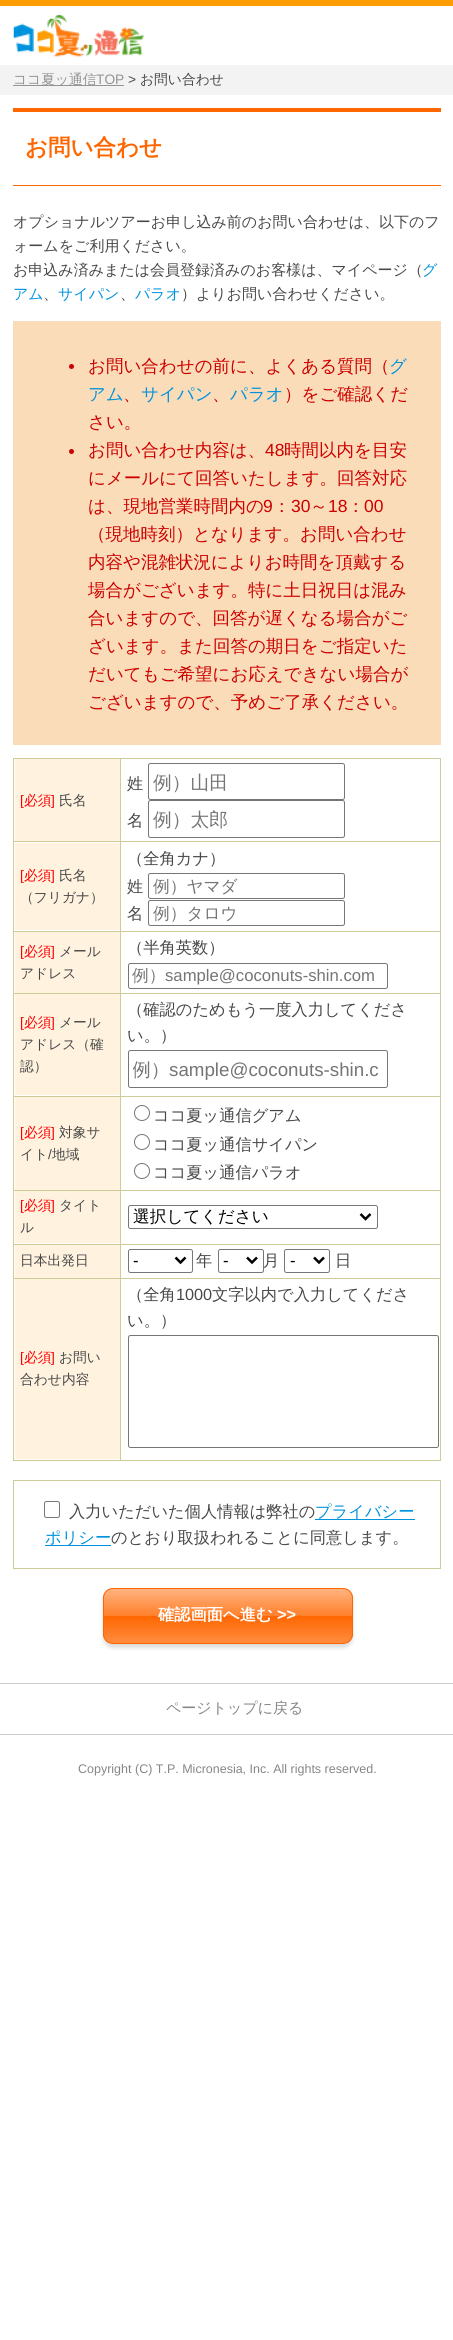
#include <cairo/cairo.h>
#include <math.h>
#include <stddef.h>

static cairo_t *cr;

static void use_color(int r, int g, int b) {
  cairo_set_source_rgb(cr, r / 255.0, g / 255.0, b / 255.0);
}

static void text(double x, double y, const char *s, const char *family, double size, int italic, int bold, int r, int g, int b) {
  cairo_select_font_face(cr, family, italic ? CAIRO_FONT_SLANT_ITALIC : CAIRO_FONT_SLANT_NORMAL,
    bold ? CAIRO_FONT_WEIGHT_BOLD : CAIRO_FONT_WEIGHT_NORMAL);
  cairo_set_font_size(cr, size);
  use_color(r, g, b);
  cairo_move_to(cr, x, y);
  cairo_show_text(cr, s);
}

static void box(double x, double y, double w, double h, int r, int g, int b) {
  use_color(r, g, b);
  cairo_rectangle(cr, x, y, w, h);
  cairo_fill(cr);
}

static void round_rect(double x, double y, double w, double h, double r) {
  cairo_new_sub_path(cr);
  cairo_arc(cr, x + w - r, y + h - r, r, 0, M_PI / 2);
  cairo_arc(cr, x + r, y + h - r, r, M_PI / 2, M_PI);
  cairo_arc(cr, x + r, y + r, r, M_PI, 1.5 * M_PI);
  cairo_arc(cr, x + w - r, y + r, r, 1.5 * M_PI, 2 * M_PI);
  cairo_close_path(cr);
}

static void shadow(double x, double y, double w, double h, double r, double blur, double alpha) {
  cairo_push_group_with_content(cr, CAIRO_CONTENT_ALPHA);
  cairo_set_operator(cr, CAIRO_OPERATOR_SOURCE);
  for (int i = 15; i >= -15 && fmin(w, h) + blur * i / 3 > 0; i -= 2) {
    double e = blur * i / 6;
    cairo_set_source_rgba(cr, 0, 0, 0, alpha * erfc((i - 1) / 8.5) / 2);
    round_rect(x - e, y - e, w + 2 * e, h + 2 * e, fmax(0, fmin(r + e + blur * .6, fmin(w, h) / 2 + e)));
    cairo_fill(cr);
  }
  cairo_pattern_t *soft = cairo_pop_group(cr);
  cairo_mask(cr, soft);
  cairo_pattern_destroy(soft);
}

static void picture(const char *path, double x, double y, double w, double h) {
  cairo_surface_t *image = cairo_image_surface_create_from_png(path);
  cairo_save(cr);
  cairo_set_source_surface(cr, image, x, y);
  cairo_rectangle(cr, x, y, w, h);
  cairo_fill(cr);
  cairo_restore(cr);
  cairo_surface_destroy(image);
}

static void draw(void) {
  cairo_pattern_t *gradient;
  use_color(255, 255, 255);
  cairo_paint(cr);
  box(0, 0, 453, 6, 254, 156, 3);
  picture("img_01.png", 13, 14, 131, 43);
  box(0, 65, 453, 30, 243, 243, 243);
  box(13, 85, 111, 1, 148, 148, 148);
  box(13, 108, 428, 4, 255, 102, 0);
  box(13, 185, 428, 1, 255, 102, 0);
  box(13, 321, 428, 424, 250, 220, 184);
  use_color(204, 0, 0);
  cairo_arc(cr, 71.5, 366.5, 2.5, 0, 2 * M_PI);
  cairo_fill(cr);
  cairo_arc(cr, 71.5, 451.5, 2.5, 0, 2 * M_PI);
  cairo_fill(cr);
  box(13, 758, 428, 1, 204, 204, 153);
  box(440, 758, 1, 703, 204, 204, 153);
  box(13, 1460, 428, 1, 204, 204, 153);
  box(13, 758, 1, 703, 204, 204, 153);
  box(15, 759, 105, 82, 255, 242, 223);
  box(120, 1278, 1, 183, 204, 204, 153);
  box(120, 1278, 321, 1, 204, 204, 153);
  box(120, 1244, 1, 35, 204, 204, 153);
  box(120, 1244, 321, 1, 204, 204, 153);
  box(120, 1190, 1, 55, 204, 204, 153);
  box(120, 1190, 321, 1, 204, 204, 153);
  box(120, 1096, 1, 95, 204, 204, 153);
  box(120, 1096, 321, 1, 204, 204, 153);
  box(120, 993, 1, 105, 204, 204, 153);
  box(120, 993, 321, 1, 204, 204, 153);
  box(120, 931, 1, 63, 204, 204, 153);
  box(120, 931, 321, 1, 204, 204, 153);
  box(120, 841, 1, 92, 204, 204, 153);
  box(120, 841, 321, 1, 204, 204, 153);
  box(120, 758, 1, 85, 204, 204, 153);
  box(13, 841, 108, 1, 204, 204, 153);
  round_rect(148.5, 763.5, 196, 36, 2);
  use_color(118, 118, 118);
  cairo_set_line_width(cr, 1);
  cairo_stroke(cr);
  round_rect(148.5, 800.5, 196, 37, 2);
  cairo_stroke(cr);
  box(15, 843, 105, 87, 255, 242, 223);
  box(13, 931, 108, 1, 204, 204, 153);
  round_rect(148.5, 873.5, 196, 25, 2);
  use_color(118, 118, 118);
  cairo_stroke(cr);
  round_rect(148.5, 900.5, 196, 25, 2);
  cairo_stroke(cr);
  box(15, 932, 105, 61, 255, 242, 223);
  box(13, 993, 108, 1, 204, 204, 153);
  round_rect(128.5, 963.5, 259, 25, 2);
  use_color(118, 118, 118);
  cairo_stroke(cr);
  box(15, 994, 105, 101, 255, 242, 223);
  box(13, 1096, 108, 1, 204, 204, 153);
  round_rect(128.5, 1050.5, 259, 37, 2);
  use_color(118, 118, 118);
  cairo_stroke(cr);
  box(15, 1097, 105, 93, 255, 242, 223);
  box(13, 1190, 108, 1, 204, 204, 153);
  cairo_arc(cr, 142, 1113, 7.5, 0, 2 * M_PI);
  use_color(118, 118, 118);
  cairo_stroke(cr);
  cairo_arc(cr, 142, 1142, 7.5, 0, 2 * M_PI);
  cairo_stroke(cr);
  cairo_arc(cr, 142, 1171, 7.5, 0, 2 * M_PI);
  cairo_stroke(cr);
  box(15, 1191, 105, 52, 255, 242, 223);
  box(13, 1244, 108, 1, 204, 204, 153);
  round_rect(128.5, 1205.5, 249, 23, 2);
  use_color(118, 118, 118);
  cairo_stroke(cr);
  cairo_new_path(cr);
  cairo_move_to(cr, 360.5, 1214);
  cairo_line_to(cr, 365.5, 1219);
  cairo_line_to(cr, 370.5, 1214);
  use_color(0, 0, 0);
  cairo_set_line_width(cr, 2.5);
  cairo_stroke(cr);
  box(15, 1245, 105, 33, 255, 242, 223);
  box(13, 1278, 108, 1, 204, 204, 153);
  round_rect(128.5, 1249.5, 64, 23, 2);
  use_color(118, 118, 118);
  cairo_set_line_width(cr, 1);
  cairo_stroke(cr);
  cairo_new_path(cr);
  cairo_move_to(cr, 175.5, 1257.5);
  cairo_line_to(cr, 180.5, 1262.5);
  cairo_line_to(cr, 185.5, 1257.5);
  use_color(0, 0, 0);
  cairo_set_line_width(cr, 2.5);
  cairo_stroke(cr);
  round_rect(218.5, 1249.5, 45, 23, 2);
  use_color(118, 118, 118);
  cairo_set_line_width(cr, 1);
  cairo_stroke(cr);
  cairo_new_path(cr);
  cairo_move_to(cr, 247, 1257.5);
  cairo_line_to(cr, 252, 1262.5);
  cairo_line_to(cr, 257, 1257.5);
  use_color(0, 0, 0);
  cairo_set_line_width(cr, 2.5);
  cairo_stroke(cr);
  round_rect(284.5, 1249.5, 45, 23, 2);
  use_color(118, 118, 118);
  cairo_set_line_width(cr, 1);
  cairo_stroke(cr);
  cairo_new_path(cr);
  cairo_move_to(cr, 314, 1257.5);
  cairo_line_to(cr, 319, 1262.5);
  cairo_line_to(cr, 324, 1257.5);
  use_color(0, 0, 0);
  cairo_set_line_width(cr, 2.5);
  cairo_stroke(cr);
  round_rect(128.5, 1335.5, 310, 112, 2);
  use_color(118, 118, 118);
  cairo_set_line_width(cr, 1);
  cairo_stroke(cr);
  box(15, 1279, 105, 180, 255, 242, 223);
  box(13, 1480, 428, 1, 204, 204, 153);
  box(440, 1480, 1, 89, 204, 204, 153);
  box(13, 1568, 428, 1, 204, 204, 153);
  box(13, 1480, 1, 89, 204, 204, 153);
  round_rect(44.5, 1501.5, 15, 16, 2);
  use_color(118, 118, 118);
  cairo_stroke(cr);
  box(315, 1519, 100, 1, 0, 147, 221);
  box(45, 1545, 66, 1, 0, 147, 221);
  use_color(221, 221, 221);
  shadow(103, 1591, 250, 57, 10, 2, 1);
  cairo_save(cr);
  round_rect(103, 1588, 250, 56, 10);
  cairo_clip(cr);
  gradient = cairo_pattern_create_linear(104, 1589, 104, 1643);
  cairo_pattern_add_color_stop_rgba(gradient, 0, 1, 0.702, 0.502, 1);
  cairo_pattern_add_color_stop_rgba(gradient, 0.5, 1, 0.502, 0.169, 1);
  cairo_pattern_add_color_stop_rgba(gradient, 0.5, 1, 0.4, 0, 1);
  cairo_pattern_add_color_stop_rgba(gradient, 1, 1, 0.549, 0.251, 1);
  cairo_set_source(cr, gradient);
  cairo_pattern_destroy(gradient);
  cairo_rectangle(cr, 103, 1589, 250, 54);
  cairo_fill(cr);
  cairo_restore(cr);
  round_rect(103.5, 1588.5, 249, 55, 9.5);
  use_color(255, 102, 0);
  cairo_stroke(cr);
  box(0, 1683, 453, 1, 204, 204, 204);
  box(0, 1734, 453, 1, 204, 204, 204);
  text(13, 84, "ココ夏ッ通信", "WenQuanYi Zen Hei Medium", 13.75, 0, 0, 148, 148, 148);
  text(96, 84, "TOP", "Liberation Sans", 13.75, 0, 0, 148, 148, 148);
  text(128, 84, ">", "Liberation Sans", 13.75, 0, 0, 72, 72, 72);
  text(140, 84, "お問い合わせ", "WenQuanYi Zen Hei Medium", 13.75, 0, 0, 72, 72, 72);
  text(25, 155, "お問い合わせ", "WenQuanYi Zen Hei", 22.5, 0, 1, 255, 102, 0);
  text(13, 227, "オプショナルツアーお申し込み前のお問い合わせは、以下のフ", "WenQuanYi Zen Hei Medium", 15, 0, 0, 72, 72, 72);
  text(13, 251, "ォームをご利用ください。", "WenQuanYi Zen Hei Medium", 15, 0, 0, 72, 72, 72);
  text(13, 275, "お申込み済みまたは会員登録済みのお客様は、マイページ（", "WenQuanYi Zen Hei Medium", 15, 0, 0, 72, 72, 72);
  text(422, 275, "グ", "WenQuanYi Zen Hei Medium", 15, 0, 0, 0, 147, 221);
  text(13, 299, "アム", "WenQuanYi Zen Hei Medium", 15, 0, 0, 0, 147, 221);
  text(43, 299, "、", "WenQuanYi Zen Hei Medium", 15, 0, 0, 72, 72, 72);
  text(58, 299, "サイパン", "WenQuanYi Zen Hei Medium", 15, 0, 0, 0, 147, 221);
  text(120, 299, "、", "WenQuanYi Zen Hei Medium", 15, 0, 0, 72, 72, 72);
  text(135, 299, "パラオ", "WenQuanYi Zen Hei Medium", 15, 0, 0, 0, 147, 221);
  text(181, 299, "）よりお問い合わせください。", "WenQuanYi Zen Hei Medium", 15, 0, 0, 72, 72, 72);
  text(88, 372, "お問い合わせの前に、よくある質問（", "WenQuanYi Zen Hei Medium", 17.5, 0, 0, 204, 0, 0);
  text(389, 372, "グ", "WenQuanYi Zen Hei Medium", 17.5, 0, 0, 0, 147, 221);
  text(88, 400, "アム", "WenQuanYi Zen Hei Medium", 17.5, 0, 0, 0, 147, 221);
  text(123, 400, "、", "WenQuanYi Zen Hei Medium", 17.5, 0, 0, 204, 0, 0);
  text(141, 400, "サイパン", "WenQuanYi Zen Hei Medium", 17.5, 0, 0, 0, 147, 221);
  text(212, 400, "、", "WenQuanYi Zen Hei Medium", 17.5, 0, 0, 204, 0, 0);
  text(230, 400, "パラオ", "WenQuanYi Zen Hei Medium", 17.5, 0, 0, 0, 147, 221);
  text(284, 400, "）をご確認くだ", "WenQuanYi Zen Hei Medium", 17.5, 0, 0, 204, 0, 0);
  text(88, 428, "さい。", "WenQuanYi Zen Hei Medium", 17.5, 0, 0, 204, 0, 0);
  text(88, 456, "お問い合わせ内容は、", "WenQuanYi Zen Hei Medium", 17.5, 0, 0, 204, 0, 0);
  text(265, 456, "48", "Liberation Sans", 17.5, 0, 0, 204, 0, 0);
  text(284, 456, "時間以内を目安", "WenQuanYi Zen Hei Medium", 17.5, 0, 0, 204, 0, 0);
  text(88, 484, "にメールにて回答いたします。回答対応", "WenQuanYi Zen Hei Medium", 17.5, 0, 0, 204, 0, 0);
  text(88, 512, "は、現地営業時間内の", "WenQuanYi Zen Hei Medium", 17.5, 0, 0, 204, 0, 0);
  text(263, 512, "9", "Liberation Sans", 17.5, 0, 0, 204, 0, 0);
  text(273, 512, "：", "WenQuanYi Zen Hei Medium", 17.5, 0, 0, 204, 0, 0);
  text(291, 512, "30", "Liberation Sans", 17.5, 0, 0, 204, 0, 0);
  text(310, 512, "～", "WenQuanYi Zen Hei Medium", 17.5, 0, 0, 204, 0, 0);
  text(328, 512, "18", "Liberation Sans", 17.5, 0, 0, 204, 0, 0);
  text(347, 512, "：", "WenQuanYi Zen Hei Medium", 17.5, 0, 0, 204, 0, 0);
  text(364, 512, "00", "Liberation Sans", 17.5, 0, 0, 204, 0, 0);
  text(88, 540, "（現地時刻）となります。お問い合わせ", "WenQuanYi Zen Hei Medium", 17.5, 0, 0, 204, 0, 0);
  text(88, 568, "内容や混雑状況によりお時間を頂戴する", "WenQuanYi Zen Hei Medium", 17.5, 0, 0, 204, 0, 0);
  text(88, 596, "場合がございます。特に土日祝日は混み", "WenQuanYi Zen Hei Medium", 17.5, 0, 0, 204, 0, 0);
  text(88, 624, "合いますので、回答が遅くなる場合がご", "WenQuanYi Zen Hei Medium", 17.5, 0, 0, 204, 0, 0);
  text(88, 652, "ざいます。また回答の期日をご指定いた", "WenQuanYi Zen Hei Medium", 17.5, 0, 0, 204, 0, 0);
  text(88, 680, "だいてもご希望にお応えできない場合が", "WenQuanYi Zen Hei Medium", 17.5, 0, 0, 204, 0, 0);
  text(88, 708, "ございますので、予めご了承ください。", "WenQuanYi Zen Hei Medium", 17.5, 0, 0, 204, 0, 0);
  text(20, 805, "[", "Liberation Sans", 13.75, 0, 0, 255, 0, 0);
  text(24, 805, "必須", "WenQuanYi Zen Hei Medium", 13.75, 0, 0, 255, 0, 0);
  text(51, 805, "]", "Liberation Sans", 13.75, 0, 0, 255, 0, 0);
  text(59, 805, "氏名", "WenQuanYi Zen Hei Medium", 13.75, 0, 0, 72, 72, 72);
  text(127, 789, "姓", "WenQuanYi Zen Hei Medium", 16.25, 0, 0, 72, 72, 72);
  text(153, 789, "例）山田", "WenQuanYi Zen Hei Medium", 18.75, 0, 0, 117, 117, 117);
  text(127, 826, "名", "WenQuanYi Zen Hei Medium", 16.25, 0, 0, 72, 72, 72);
  text(153, 826, "例）太郎", "WenQuanYi Zen Hei Medium", 18.75, 0, 0, 117, 117, 117);
  text(20, 880, "[", "Liberation Sans", 13.75, 0, 0, 255, 0, 0);
  text(24, 880, "必須", "WenQuanYi Zen Hei Medium", 13.75, 0, 0, 255, 0, 0);
  text(51, 880, "]", "Liberation Sans", 13.75, 0, 0, 255, 0, 0);
  text(59, 880, "氏名", "WenQuanYi Zen Hei Medium", 13.75, 0, 0, 72, 72, 72);
  text(20, 902, "（フリガナ）", "WenQuanYi Zen Hei Medium", 13.75, 0, 0, 72, 72, 72);
  text(127, 864, "（全角カナ）", "WenQuanYi Zen Hei Medium", 16.25, 0, 0, 72, 72, 72);
  text(127, 892, "姓", "WenQuanYi Zen Hei Medium", 16.25, 0, 0, 72, 72, 72);
  text(153, 892, "例）ヤマダ", "WenQuanYi Zen Hei Medium", 16.7, 0, 0, 117, 117, 117);
  text(127, 919, "名", "WenQuanYi Zen Hei Medium", 16.25, 0, 0, 72, 72, 72);
  text(153, 919, "例）タロウ", "WenQuanYi Zen Hei Medium", 16.7, 0, 0, 117, 117, 117);
  text(20, 956, "[", "Liberation Sans", 13.75, 0, 0, 255, 0, 0);
  text(24, 956, "必須", "WenQuanYi Zen Hei Medium", 13.75, 0, 0, 255, 0, 0);
  text(51, 956, "]", "Liberation Sans", 13.75, 0, 0, 255, 0, 0);
  text(59, 956, "メール", "WenQuanYi Zen Hei Medium", 13.75, 0, 0, 72, 72, 72);
  text(20, 978, "アドレス", "WenQuanYi Zen Hei Medium", 13.75, 0, 0, 72, 72, 72);
  text(127, 953, "（半角英数）", "WenQuanYi Zen Hei Medium", 16.25, 0, 0, 72, 72, 72);
  text(132, 981, "例）", "WenQuanYi Zen Hei Medium", 16.7, 0, 0, 117, 117, 117);
  text(165, 981, "sample@coconuts-shin.com", "Liberation Sans", 16.7, 0, 0, 117, 117, 117);
  text(20, 1027, "[", "Liberation Sans", 13.75, 0, 0, 255, 0, 0);
  text(24, 1027, "必須", "WenQuanYi Zen Hei Medium", 13.75, 0, 0, 255, 0, 0);
  text(51, 1027, "]", "Liberation Sans", 13.75, 0, 0, 255, 0, 0);
  text(59, 1027, "メール", "WenQuanYi Zen Hei Medium", 13.75, 0, 0, 72, 72, 72);
  text(20, 1049, "アドレス（確", "WenQuanYi Zen Hei Medium", 13.75, 0, 0, 72, 72, 72);
  text(20, 1071, "認）", "WenQuanYi Zen Hei Medium", 13.75, 0, 0, 72, 72, 72);
  text(127, 1015, "（確認のためもう一度入力してくださ", "WenQuanYi Zen Hei Medium", 16.25, 0, 0, 72, 72, 72);
  text(127, 1041, "い。）", "WenQuanYi Zen Hei Medium", 16.25, 0, 0, 72, 72, 72);
  cairo_save(cr);
  cairo_rectangle(cr, 133, 1058, 250, 23);
  cairo_clip(cr);
  text(132, 1076, "例）", "WenQuanYi Zen Hei Medium", 18.75, 0, 0, 117, 117, 117);
  cairo_restore(cr);
  text(169, 1076, "sample@coconuts-shin.c", "Liberation Sans", 18.75, 0, 0, 117, 117, 117);
  text(20, 1137, "[", "Liberation Sans", 13.75, 0, 0, 255, 0, 0);
  text(24, 1137, "必須", "WenQuanYi Zen Hei Medium", 13.75, 0, 0, 255, 0, 0);
  text(51, 1137, "]", "Liberation Sans", 13.75, 0, 0, 255, 0, 0);
  text(59, 1137, "対象サ", "WenQuanYi Zen Hei Medium", 13.75, 0, 0, 72, 72, 72);
  text(20, 1159, "イト", "WenQuanYi Zen Hei Medium", 13.75, 0, 0, 72, 72, 72);
  text(48, 1159, "/", "Liberation Sans", 13.75, 0, 0, 72, 72, 72);
  text(52, 1159, "地域", "WenQuanYi Zen Hei Medium", 13.75, 0, 0, 72, 72, 72);
  text(153, 1121, "ココ夏ッ通信グアム", "WenQuanYi Zen Hei Medium", 16.25, 0, 0, 72, 72, 72);
  text(153, 1150, "ココ夏ッ通信サイパン", "WenQuanYi Zen Hei Medium", 16.25, 0, 0, 72, 72, 72);
  text(153, 1178, "ココ夏ッ通信パラオ", "WenQuanYi Zen Hei Medium", 16.25, 0, 0, 72, 72, 72);
  text(20, 1210, "[", "Liberation Sans", 13.75, 0, 0, 255, 0, 0);
  text(24, 1210, "必須", "WenQuanYi Zen Hei Medium", 13.75, 0, 0, 255, 0, 0);
  text(51, 1210, "]", "Liberation Sans", 13.75, 0, 0, 255, 0, 0);
  text(59, 1210, "タイト", "WenQuanYi Zen Hei Medium", 13.75, 0, 0, 72, 72, 72);
  text(20, 1232, "ル", "WenQuanYi Zen Hei Medium", 13.75, 0, 0, 72, 72, 72);
  text(133, 1222, "選択してください", "WenQuanYi Zen Hei Medium", 16.7, 0, 0, 0, 0, 0);
  text(20, 1265, "日本出発日", "WenQuanYi Zen Hei Medium", 13.75, 0, 0, 72, 72, 72);
  text(133, 1266, "-", "Liberation Sans", 16.7, 0, 0, 0, 0, 0);
  text(196, 1266, "年", "WenQuanYi Zen Hei Medium", 16.25, 0, 0, 72, 72, 72);
  text(223, 1266, "-", "Liberation Sans", 16.7, 0, 0, 0, 0, 0);
  text(263, 1266, "月", "WenQuanYi Zen Hei Medium", 16.25, 0, 0, 72, 72, 72);
  text(290, 1266, "-", "Liberation Sans", 16.7, 0, 0, 0, 0, 0);
  text(335, 1266, "日", "WenQuanYi Zen Hei Medium", 16.25, 0, 0, 72, 72, 72);
  text(127, 1300, "（全角", "WenQuanYi Zen Hei Medium", 16.25, 0, 0, 72, 72, 72);
  text(176, 1300, "1000", "Liberation Sans", 16.25, 0, 0, 72, 72, 72);
  text(212, 1300, "文字以内で入力してくださ", "WenQuanYi Zen Hei Medium", 16.25, 0, 0, 72, 72, 72);
  text(127, 1326, "い。）", "WenQuanYi Zen Hei Medium", 16.25, 0, 0, 72, 72, 72);
  text(20, 1362, "[", "Liberation Sans", 13.75, 0, 0, 255, 0, 0);
  text(24, 1362, "必須", "WenQuanYi Zen Hei Medium", 13.75, 0, 0, 255, 0, 0);
  text(51, 1362, "]", "Liberation Sans", 13.75, 0, 0, 255, 0, 0);
  text(59, 1362, "お問い", "WenQuanYi Zen Hei Medium", 13.75, 0, 0, 72, 72, 72);
  text(20, 1384, "合わせ内容", "WenQuanYi Zen Hei Medium", 13.75, 0, 0, 72, 72, 72);
  text(69, 1517, "入力いただいた個人情報は弊社の", "WenQuanYi Zen Hei Medium", 16.25, 0, 0, 72, 72, 72);
  text(315, 1517, "プライバシー", "WenQuanYi Zen Hei Medium", 16.25, 0, 0, 0, 147, 221);
  text(45, 1543, "ポリシー", "WenQuanYi Zen Hei Medium", 16.25, 0, 0, 0, 147, 221);
  text(111, 1543, "のとおり取扱われることに同意します。", "WenQuanYi Zen Hei Medium", 16.25, 0, 0, 72, 72, 72);
  text(158, 1620, "確認画面へ進む", "WenQuanYi Zen Hei", 16.25, 0, 1, 255, 255, 255);
  text(277, 1620, ">>", "Liberation Sans", 16.25, 0, 1, 255, 255, 255);
  text(166, 1713, "ページトップに戻る", "WenQuanYi Zen Hei Medium", 15, 0, 0, 134, 134, 134);
  text(78, 1773, "Copyright (C) T.P. Micronesia, Inc. All rights reserved.", "Liberation Sans", 12.5, 0, 0, 134, 134, 134);
}

int main(void) {
  cairo_surface_t *surface = cairo_image_surface_create(CAIRO_FORMAT_RGB24, 453, 2340);
  cr = cairo_create(surface);
  cairo_font_options_t *options = cairo_font_options_create();
  cairo_font_options_set_hint_metrics(options, CAIRO_HINT_METRICS_OFF);
  cairo_font_options_set_hint_style(options, CAIRO_HINT_STYLE_NONE);
  cairo_set_font_options(cr, options);
  cairo_set_miter_limit(cr, 4);
  draw();
  cairo_surface_write_to_png(surface, "out.png");
  cairo_font_options_destroy(options);
  cairo_destroy(cr);
  cairo_surface_destroy(surface);
  return 0;
}
